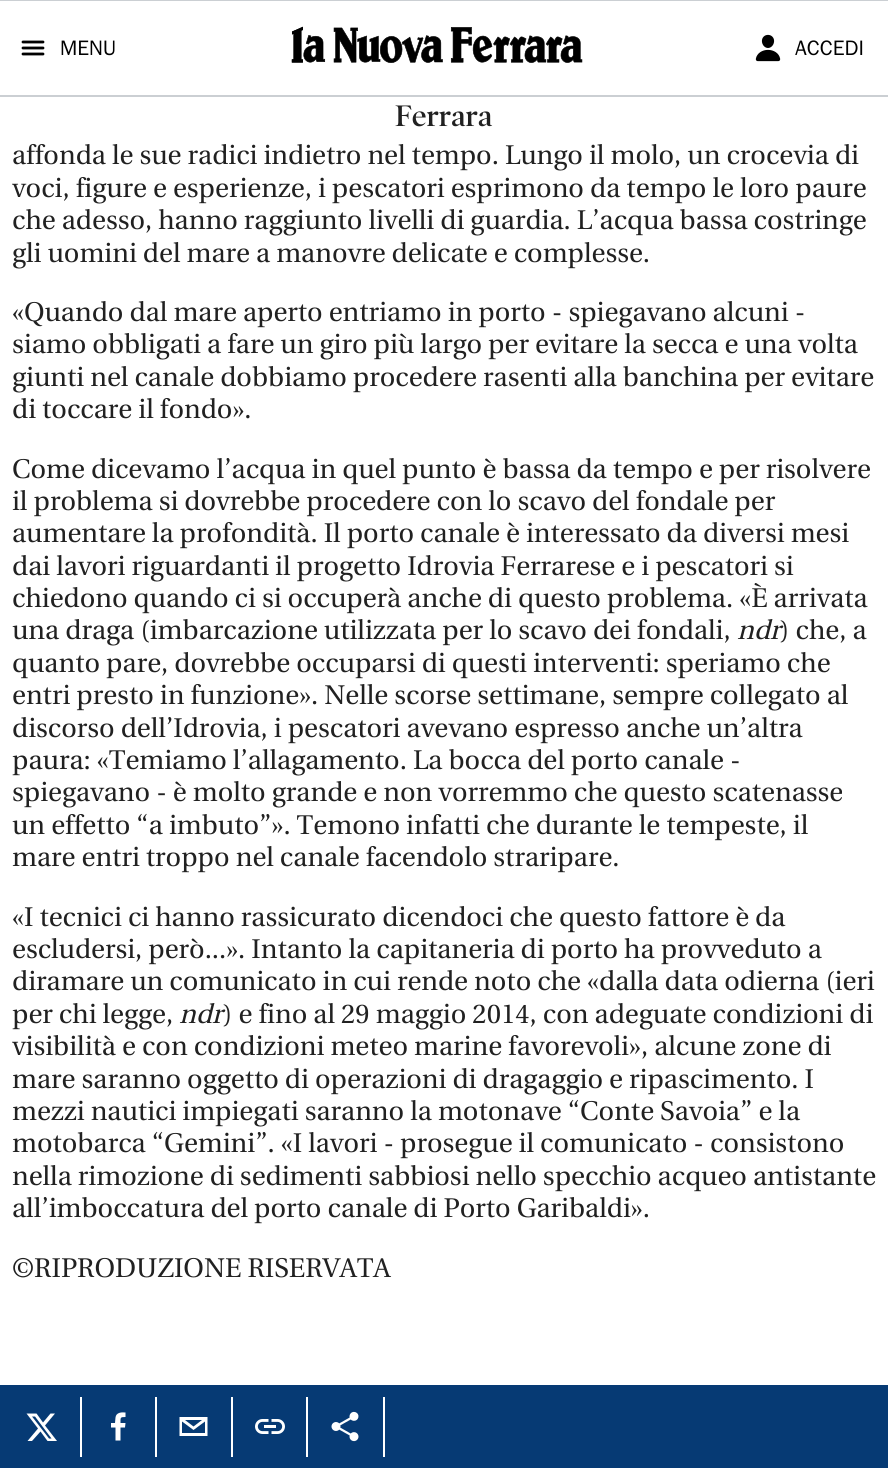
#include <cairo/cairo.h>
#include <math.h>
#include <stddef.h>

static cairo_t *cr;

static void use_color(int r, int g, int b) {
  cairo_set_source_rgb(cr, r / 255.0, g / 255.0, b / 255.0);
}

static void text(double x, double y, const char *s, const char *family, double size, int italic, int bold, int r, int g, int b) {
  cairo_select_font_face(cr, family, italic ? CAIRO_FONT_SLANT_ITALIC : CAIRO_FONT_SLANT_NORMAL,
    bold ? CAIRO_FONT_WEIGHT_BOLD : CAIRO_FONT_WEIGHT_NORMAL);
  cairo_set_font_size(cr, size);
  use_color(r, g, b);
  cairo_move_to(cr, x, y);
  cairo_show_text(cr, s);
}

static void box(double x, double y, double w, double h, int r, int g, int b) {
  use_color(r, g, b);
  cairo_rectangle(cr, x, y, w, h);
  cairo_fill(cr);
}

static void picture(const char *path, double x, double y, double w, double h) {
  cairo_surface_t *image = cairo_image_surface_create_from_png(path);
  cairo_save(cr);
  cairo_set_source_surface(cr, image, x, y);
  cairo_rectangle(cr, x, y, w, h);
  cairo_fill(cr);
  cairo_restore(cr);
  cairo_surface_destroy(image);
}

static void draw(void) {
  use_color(255, 255, 255);
  cairo_paint(cr);
  box(0, 0, 888, 1, 203, 207, 211);
  box(0, 95, 888, 2, 203, 207, 211);
  cairo_new_path(cr);
  cairo_move_to(cr, 23, 42);
  cairo_line_to(cr, 43, 42);
  cairo_move_to(cr, 23, 48);
  cairo_line_to(cr, 43, 48);
  cairo_move_to(cr, 23, 54);
  cairo_line_to(cr, 43, 54);
  use_color(0, 0, 0);
  cairo_set_line_width(cr, 2.8);
  cairo_set_line_cap(cr, CAIRO_LINE_CAP_ROUND);
  cairo_stroke(cr);
  picture("img_01.png", 291, 26, 292, 37);
  picture("img_02.png", 755, 34, 26, 28);
  box(0, 1385, 888, 83, 6, 58, 116);
  use_color(255, 255, 255);
  cairo_new_path(cr);
  cairo_move_to(cr, 50.5, 1413.5);
  cairo_line_to(cr, 55, 1413.5);
  cairo_line_to(cr, 45, 1425.5);
  cairo_line_to(cr, 57, 1441);
  cairo_line_to(cr, 47.5, 1441);
  cairo_line_to(cr, 40.5, 1431.5);
  cairo_line_to(cr, 32, 1441);
  cairo_line_to(cr, 27.5, 1441);
  cairo_line_to(cr, 38, 1428.5);
  cairo_line_to(cr, 26.5, 1413.5);
  cairo_line_to(cr, 36.5, 1413.5);
  cairo_line_to(cr, 43, 1422.5);
  cairo_close_path(cr);
  cairo_move_to(cr, 49, 1438.5);
  cairo_line_to(cr, 51.5, 1438.5);
  cairo_line_to(cr, 35, 1416.5);
  cairo_line_to(cr, 32, 1416.5);
  cairo_close_path(cr);
  cairo_fill(cr);
  box(80, 1397, 2, 60, 255, 255, 255);
  cairo_new_path(cr);
  cairo_move_to(cr, 120.5, 1440.5);
  cairo_line_to(cr, 120.5, 1427.5);
  cairo_line_to(cr, 125, 1427.5);
  cairo_line_to(cr, 125.5, 1423);
  cairo_line_to(cr, 120.5, 1423);
  cairo_curve_to(cr, 120.5, 1417.5, 120, 1417, 125.5, 1417);
  cairo_line_to(cr, 125.5, 1412.5);
  cairo_curve_to(cr, 121.5, 1412, 116, 1412.5, 115.5, 1417.5);
  cairo_line_to(cr, 115, 1423);
  cairo_line_to(cr, 111, 1423);
  cairo_line_to(cr, 111, 1427.5);
  cairo_line_to(cr, 115.5, 1427.5);
  cairo_line_to(cr, 115.5, 1440.5);
  cairo_close_path(cr);
  cairo_fill(cr);
  box(155, 1397, 2, 60, 255, 255, 255);
  cairo_new_path(cr);
  cairo_move_to(cr, 179.5, 1417);
  cairo_line_to(cr, 179.5, 1436);
  cairo_line_to(cr, 207.5, 1436);
  cairo_line_to(cr, 207.5, 1417);
  cairo_close_path(cr);
  cairo_move_to(cr, 202, 1420);
  cairo_line_to(cr, 193.5, 1426.5);
  cairo_line_to(cr, 185, 1420);
  cairo_close_path(cr);
  cairo_move_to(cr, 182, 1433);
  cairo_line_to(cr, 182, 1421.5);
  cairo_line_to(cr, 193.5, 1430);
  cairo_line_to(cr, 205, 1421.5);
  cairo_line_to(cr, 205, 1433);
  cairo_close_path(cr);
  cairo_fill(cr);
  box(231, 1397, 2, 60, 255, 255, 255);
  picture("img_03.png", 255, 1419, 30, 15);
  box(306, 1397, 2, 60, 255, 255, 255);
  picture("img_04.png", 331, 1411, 28, 31);
  box(383, 1397, 2, 60, 255, 255, 255);
  text(60, 55, "MENU", "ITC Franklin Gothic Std", 21, 0, 0, 0, 0, 0);
  text(795, 55, "ACCEDI", "ITC Franklin Gothic Std", 21, 0, 0, 0, 0, 0);
  text(395, 126, "Ferrara", "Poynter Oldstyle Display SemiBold", 30, 0, 0, 33, 33, 33);
  text(12, 164, "affonda le sue radici indietro nel tempo. Lungo il molo, un crocevia di", "Utopia", 27, 0, 0, 33, 33, 33);
  text(12, 197, "voci, figure e esperienze, i pescatori esprimono da tempo le loro paure", "Utopia", 27, 0, 0, 33, 33, 33);
  text(12, 229, "che adesso, hanno raggiunto livelli di guardia. L’acqua bassa costringe", "Utopia", 27, 0, 0, 33, 33, 33);
  text(12, 262, "gli uomini del mare a manovre delicate e complesse.", "Utopia", 27, 0, 0, 33, 33, 33);
  text(12, 321, "«Quando dal mare aperto entriamo in porto - spiegavano alcuni -", "Utopia", 27, 0, 0, 33, 33, 33);
  text(12, 353, "siamo obbligati a fare un giro più largo per evitare la secca e una volta", "Utopia", 27, 0, 0, 33, 33, 33);
  text(12, 386, "giunti nel canale dobbiamo procedere rasenti alla banchina per evitare", "Utopia", 27, 0, 0, 33, 33, 33);
  text(12, 418, "di toccare il fondo».", "Utopia", 27, 0, 0, 33, 33, 33);
  text(12, 478, "Come dicevamo l’acqua in quel punto è bassa da tempo e per risolvere", "Utopia", 27, 0, 0, 33, 33, 33);
  text(12, 510, "il problema si dovrebbe procedere con lo scavo del fondale per", "Utopia", 27, 0, 0, 33, 33, 33);
  text(12, 542, "aumentare la profondità. Il porto canale è interessato da diversi mesi", "Utopia", 27, 0, 0, 33, 33, 33);
  text(12, 575, "dai lavori riguardanti il progetto Idrovia Ferrarese e i pescatori si", "Utopia", 27, 0, 0, 33, 33, 33);
  text(12, 607, "chiedono quando ci si occuperà anche di questo problema. «È arrivata", "Utopia", 27, 0, 0, 33, 33, 33);
  text(12, 639, "una draga (imbarcazione utilizzata per lo scavo dei fondali,", "Utopia", 27, 0, 0, 33, 33, 33);
  text(737, 639, "ndr", "Utopia", 27, 1, 0, 33, 33, 33);
  text(780, 639, ") che, a", "Utopia", 27, 0, 0, 33, 33, 33);
  text(12, 672, "quanto pare, dovrebbe occuparsi di questi interventi: speriamo che", "Utopia", 27, 0, 0, 33, 33, 33);
  text(12, 704, "entri presto in funzione». Nelle scorse settimane, sempre collegato al", "Utopia", 27, 0, 0, 33, 33, 33);
  text(12, 737, "discorso dell’Idrovia, i pescatori avevano espresso anche un’altra", "Utopia", 27, 0, 0, 33, 33, 33);
  text(12, 769, "paura: «Temiamo l’allagamento. La bocca del porto canale -", "Utopia", 27, 0, 0, 33, 33, 33);
  text(12, 801, "spiegavano - è molto grande e non vorremmo che questo scatenasse", "Utopia", 27, 0, 0, 33, 33, 33);
  text(12, 834, "un effetto “a imbuto”». Temono infatti che durante le tempeste, il", "Utopia", 27, 0, 0, 33, 33, 33);
  text(12, 866, "mare entri troppo nel canale facendolo straripare.", "Utopia", 27, 0, 0, 33, 33, 33);
  text(12, 926, "«I tecnici ci hanno rassicurato dicendoci che questo fattore è da", "Utopia", 27, 0, 0, 33, 33, 33);
  text(12, 958, "escludersi, però...». Intanto la capitaneria di porto ha provveduto a", "Utopia", 27, 0, 0, 33, 33, 33);
  text(12, 990, "diramare un comunicato in cui rende noto che «dalla data odierna (ieri", "Utopia", 27, 0, 0, 33, 33, 33);
  text(12, 1023, "per chi legge,", "Utopia", 27, 0, 0, 33, 33, 33);
  text(179, 1023, "ndr", "Utopia", 27, 1, 0, 33, 33, 33);
  text(223, 1023, ") e fino al 29 maggio 2014, con adeguate condizioni di", "Utopia", 27, 0, 0, 33, 33, 33);
  text(12, 1055, "visibilità e con condizioni meteo marine favorevoli», alcune zone di", "Utopia", 27, 0, 0, 33, 33, 33);
  text(12, 1088, "mare saranno oggetto di operazioni di dragaggio e ripascimento. I", "Utopia", 27, 0, 0, 33, 33, 33);
  text(12, 1120, "mezzi nautici impiegati saranno la motonave “Conte Savoia” e la", "Utopia", 27, 0, 0, 33, 33, 33);
  text(12, 1152, "motobarca “Gemini”. «I lavori - prosegue il comunicato - consistono", "Utopia", 27, 0, 0, 33, 33, 33);
  text(12, 1185, "nella rimozione di sedimenti sabbiosi nello specchio acqueo antistante", "Utopia", 27, 0, 0, 33, 33, 33);
  text(12, 1217, "all’imboccatura del porto canale di Porto Garibaldi».", "Utopia", 27, 0, 0, 33, 33, 33);
  text(12, 1277, "©RIPRODUZIONE RISERVATA", "Utopia", 27, 0, 0, 33, 33, 33);
}

int main(void) {
  cairo_surface_t *surface = cairo_image_surface_create(CAIRO_FORMAT_RGB24, 888, 1468);
  cr = cairo_create(surface);
  cairo_font_options_t *options = cairo_font_options_create();
  cairo_font_options_set_hint_metrics(options, CAIRO_HINT_METRICS_OFF);
  cairo_font_options_set_hint_style(options, CAIRO_HINT_STYLE_NONE);
  cairo_set_font_options(cr, options);
  cairo_set_miter_limit(cr, 4);
  draw();
  cairo_surface_write_to_png(surface, "out.png");
  cairo_font_options_destroy(options);
  cairo_destroy(cr);
  cairo_surface_destroy(surface);
  return 0;
}
